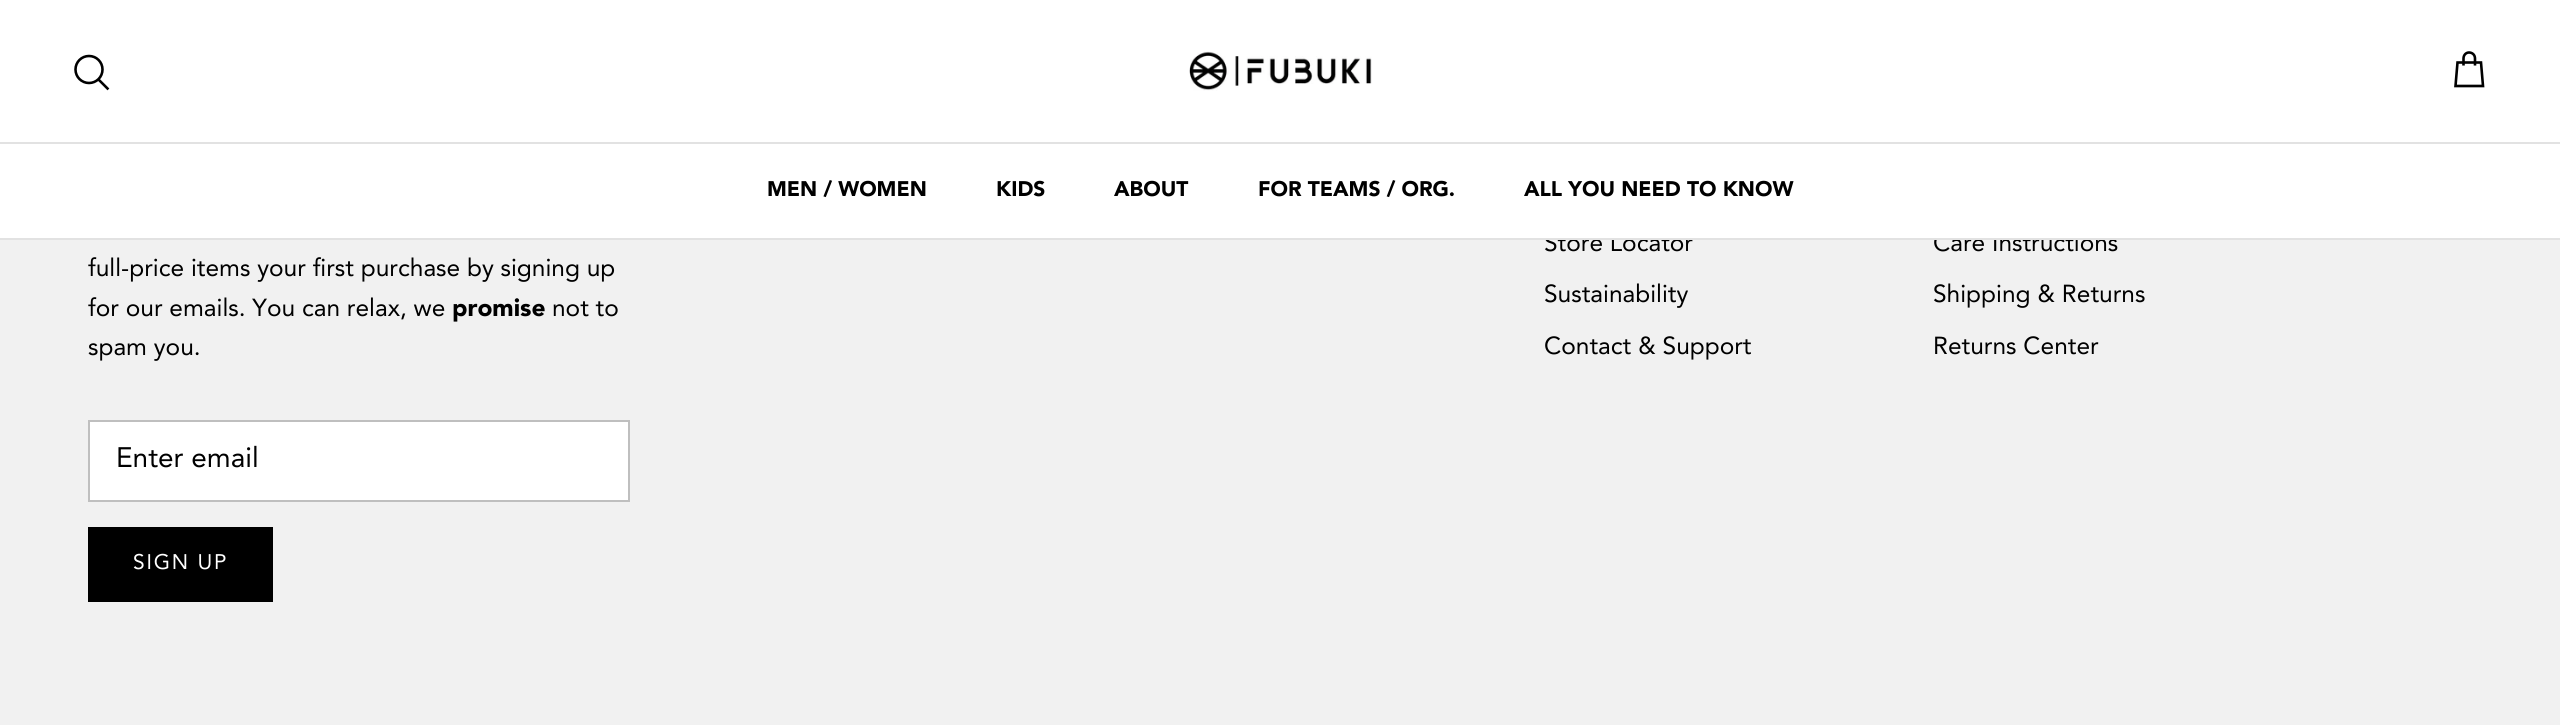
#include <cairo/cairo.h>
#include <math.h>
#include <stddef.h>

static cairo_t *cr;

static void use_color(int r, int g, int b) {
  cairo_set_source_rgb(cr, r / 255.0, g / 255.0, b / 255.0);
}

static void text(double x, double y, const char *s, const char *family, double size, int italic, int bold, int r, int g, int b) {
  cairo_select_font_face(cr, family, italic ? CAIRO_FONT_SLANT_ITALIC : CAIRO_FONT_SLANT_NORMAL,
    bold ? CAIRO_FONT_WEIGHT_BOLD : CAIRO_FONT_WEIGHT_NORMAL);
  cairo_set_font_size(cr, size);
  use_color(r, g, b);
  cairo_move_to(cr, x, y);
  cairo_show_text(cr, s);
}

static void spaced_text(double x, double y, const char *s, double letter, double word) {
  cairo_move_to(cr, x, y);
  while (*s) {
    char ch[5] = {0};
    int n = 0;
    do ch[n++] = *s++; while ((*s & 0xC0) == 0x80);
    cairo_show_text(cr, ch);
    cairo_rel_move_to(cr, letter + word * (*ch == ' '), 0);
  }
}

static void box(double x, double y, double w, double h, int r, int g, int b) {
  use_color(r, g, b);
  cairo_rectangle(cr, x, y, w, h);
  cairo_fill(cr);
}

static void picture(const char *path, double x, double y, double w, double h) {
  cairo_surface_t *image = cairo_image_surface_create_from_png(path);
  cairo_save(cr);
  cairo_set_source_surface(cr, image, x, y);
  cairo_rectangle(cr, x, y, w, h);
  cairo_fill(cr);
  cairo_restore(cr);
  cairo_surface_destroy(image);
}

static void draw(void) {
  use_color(241, 241, 241);
  cairo_paint(cr);
  box(0, 0, 2560, 142, 255, 255, 255);
  box(0, 142, 2560, 2, 226, 226, 226);
  cairo_arc(cr, 89, 69.5, 13.5, 0, 2 * M_PI);
  use_color(0, 0, 0);
  cairo_set_line_width(cr, 2.6);
  cairo_stroke(cr);
  cairo_new_path(cr);
  cairo_move_to(cr, 99.5, 80.5);
  cairo_line_to(cr, 107.5, 88.5);
  cairo_set_line_cap(cr, CAIRO_LINE_CAP_SQUARE);
  cairo_stroke(cr);
  picture("img_01.png", 1189, 51, 183, 40);
  cairo_new_path(cr);
  cairo_move_to(cr, 2475, 65.5);
  cairo_line_to(cr, 2475, 58.5);
  cairo_curve_to(cr, 2475, 55, 2472.5, 52.5, 2469, 52.5);
  cairo_curve_to(cr, 2466, 52.5, 2463.5, 55, 2463.5, 58.5);
  cairo_line_to(cr, 2463.5, 65.5);
  cairo_move_to(cr, 2457.5, 62.5);
  cairo_line_to(cr, 2481, 62.5);
  cairo_line_to(cr, 2483, 86);
  cairo_line_to(cr, 2455.5, 86);
  cairo_close_path(cr);
  cairo_set_line_cap(cr, CAIRO_LINE_CAP_BUTT);
  cairo_stroke(cr);
  use_color(255, 255, 255);
  cairo_rectangle(cr, 89, 421, 540, 80);
  cairo_fill_preserve(cr);
  use_color(191, 191, 191);
  cairo_set_line_width(cr, 2);
  cairo_stroke(cr);
  box(88, 527, 185, 75, 0, 0, 0);
  box(0, 725, 2560, 2, 255, 255, 255);
  text(88, 276, "full-price items your first purchase by signing up", "Avenir", 24.5, 0, 0, 0, 0, 0);
  text(88, 316, "for our emails. You can relax, we", "Avenir", 24.5, 0, 0, 0, 0, 0);
  text(452, 316, "promise", "Avenir Black", 24.5, 0, 0, 0, 0, 0);
  text(552, 316, "not to", "Avenir", 24.5, 0, 0, 0, 0, 0);
  text(88, 355, "spam you.", "Avenir", 24.5, 0, 0, 0, 0, 0);
  text(116, 467, "Enter email", "Avenir", 28, 0, 0, 0, 0, 0);
  cairo_set_font_size(cr, 21);
  use_color(255, 255, 255);
  spaced_text(133, 569, "SIGN UP", 1.75, 0);
  text(1544, 251, "Store Locator", "Avenir", 24.5, 0, 0, 0, 0, 0);
  text(1544, 302, "Sustainability", "Avenir", 24.5, 0, 0, 0, 0, 0);
  text(1544, 354, "Contact & Support", "Avenir", 24.5, 0, 0, 0, 0, 0);
  text(1933, 251, "Care Instructions", "Avenir", 24.5, 0, 0, 0, 0, 0);
  box(0, 144, 2560, 94, 255, 255, 255);
  text(1524, 196, "ALL YOU NEED TO KNOW", "Avenir Black", 21, 0, 0, 0, 0, 0);
  text(1258, 196, "FOR TEAMS / ORG.", "Avenir Black", 21, 0, 0, 0, 0, 0);
  text(1114, 196, "ABOUT", "Avenir Black", 21, 0, 0, 0, 0, 0);
  text(996, 196, "KIDS", "Avenir Black", 21, 0, 0, 0, 0, 0);
  text(767, 196, "MEN / WOMEN", "Avenir Black", 21, 0, 0, 0, 0, 0);
  box(0, 238, 2560, 2, 226, 226, 226);
  text(1933, 302, "Shipping & Returns", "Avenir", 24.5, 0, 0, 0, 0, 0);
  text(1933, 354, "Returns Center", "Avenir", 24.5, 0, 0, 0, 0, 0);
}

int main(void) {
  cairo_surface_t *surface = cairo_image_surface_create(CAIRO_FORMAT_RGB24, 2560, 727);
  cr = cairo_create(surface);
  cairo_font_options_t *options = cairo_font_options_create();
  cairo_font_options_set_hint_metrics(options, CAIRO_HINT_METRICS_OFF);
  cairo_font_options_set_hint_style(options, CAIRO_HINT_STYLE_NONE);
  cairo_set_font_options(cr, options);
  cairo_set_miter_limit(cr, 4);
  draw();
  cairo_surface_write_to_png(surface, "out.png");
  cairo_font_options_destroy(options);
  cairo_destroy(cr);
  cairo_surface_destroy(surface);
  return 0;
}
